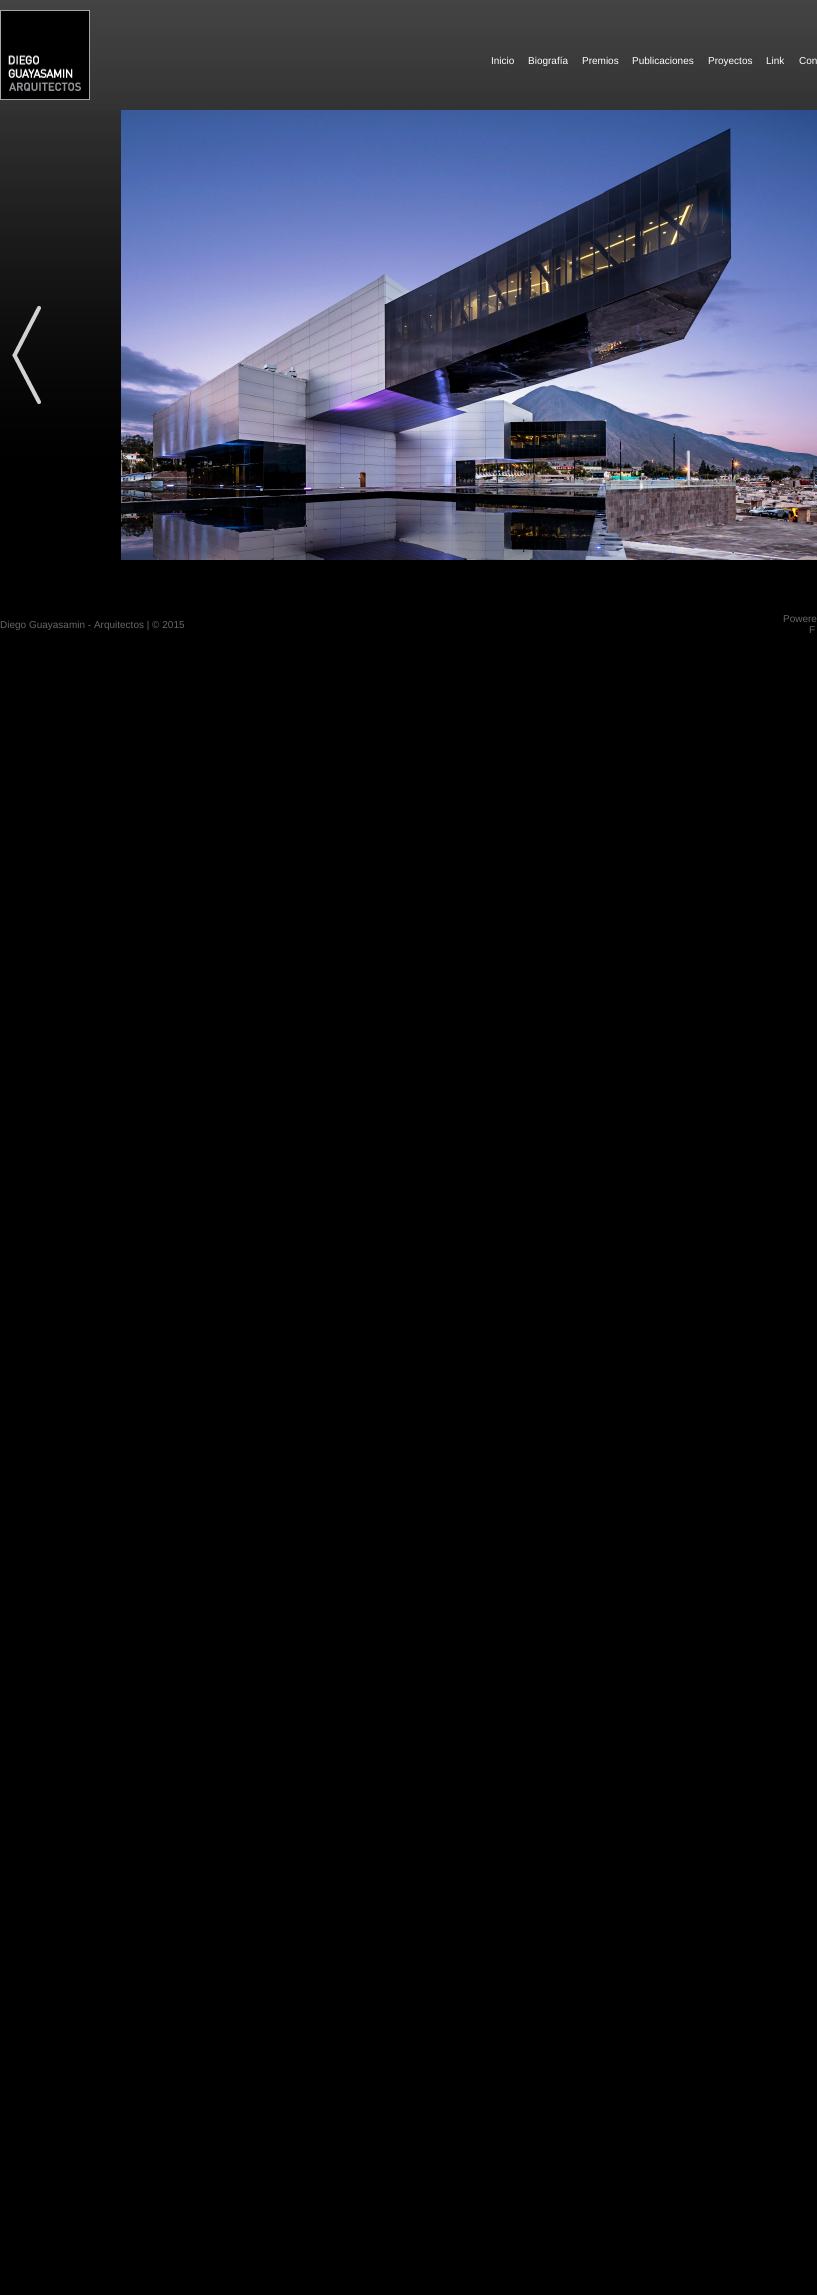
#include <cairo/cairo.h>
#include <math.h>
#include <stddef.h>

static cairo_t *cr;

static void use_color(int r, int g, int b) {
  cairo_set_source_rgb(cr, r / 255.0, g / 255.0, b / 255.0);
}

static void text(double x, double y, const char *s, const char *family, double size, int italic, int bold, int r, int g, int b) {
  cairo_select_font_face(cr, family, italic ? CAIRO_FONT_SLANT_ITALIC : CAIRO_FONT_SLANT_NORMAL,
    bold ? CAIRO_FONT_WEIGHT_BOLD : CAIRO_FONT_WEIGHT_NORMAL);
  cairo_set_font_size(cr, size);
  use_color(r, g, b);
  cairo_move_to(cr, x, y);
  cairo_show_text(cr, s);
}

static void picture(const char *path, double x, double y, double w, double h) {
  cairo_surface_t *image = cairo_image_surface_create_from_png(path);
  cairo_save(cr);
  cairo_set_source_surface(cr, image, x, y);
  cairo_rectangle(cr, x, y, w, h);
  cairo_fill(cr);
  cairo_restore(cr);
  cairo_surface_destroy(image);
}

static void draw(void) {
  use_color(0, 0, 0);
  cairo_paint(cr);
  picture("img_01.png", 0, 0, 817, 110);
  picture("img_02.png", 0, 10, 90, 90);
  picture("img_03.png", 0, 110, 120, 450);
  picture("img_04.png", 120, 110, 697, 450);
  picture("img_05.png", 12, 306, 29, 98);
  text(491, 64, "Inicio", "Liberation Sans", 10, 0, 0, 255, 255, 255);
  text(528, 64, "Biografía", "Liberation Sans", 10, 0, 0, 255, 255, 255);
  text(582, 64, "Premios", "Liberation Sans", 10, 0, 0, 255, 255, 255);
  text(632, 64, "Publicaciones", "Liberation Sans", 10, 0, 0, 255, 255, 255);
  text(708, 64, "Proyectos", "Liberation Sans", 10, 0, 0, 255, 255, 255);
  text(766, 64, "Link", "Liberation Sans", 10, 0, 0, 255, 255, 255);
  text(799, 64, "Con", "Liberation Sans", 10, 0, 0, 255, 255, 255);
  text(0, 628, "Diego Guayasamin - Arquitectos | © 2015", "Liberation Sans", 10, 0, 0, 102, 102, 102);
  text(783, 622, "Powere", "Liberation Sans", 10, 0, 0, 102, 102, 102);
  text(809, 633, "F", "Liberation Sans", 10, 0, 0, 102, 102, 102);
}

int main(void) {
  cairo_surface_t *surface = cairo_image_surface_create(CAIRO_FORMAT_RGB24, 817, 2295);
  cr = cairo_create(surface);
  cairo_font_options_t *options = cairo_font_options_create();
  cairo_font_options_set_hint_metrics(options, CAIRO_HINT_METRICS_OFF);
  cairo_font_options_set_hint_style(options, CAIRO_HINT_STYLE_NONE);
  cairo_set_font_options(cr, options);
  cairo_set_miter_limit(cr, 4);
  draw();
  cairo_surface_write_to_png(surface, "out.png");
  cairo_font_options_destroy(options);
  cairo_destroy(cr);
  cairo_surface_destroy(surface);
  return 0;
}
